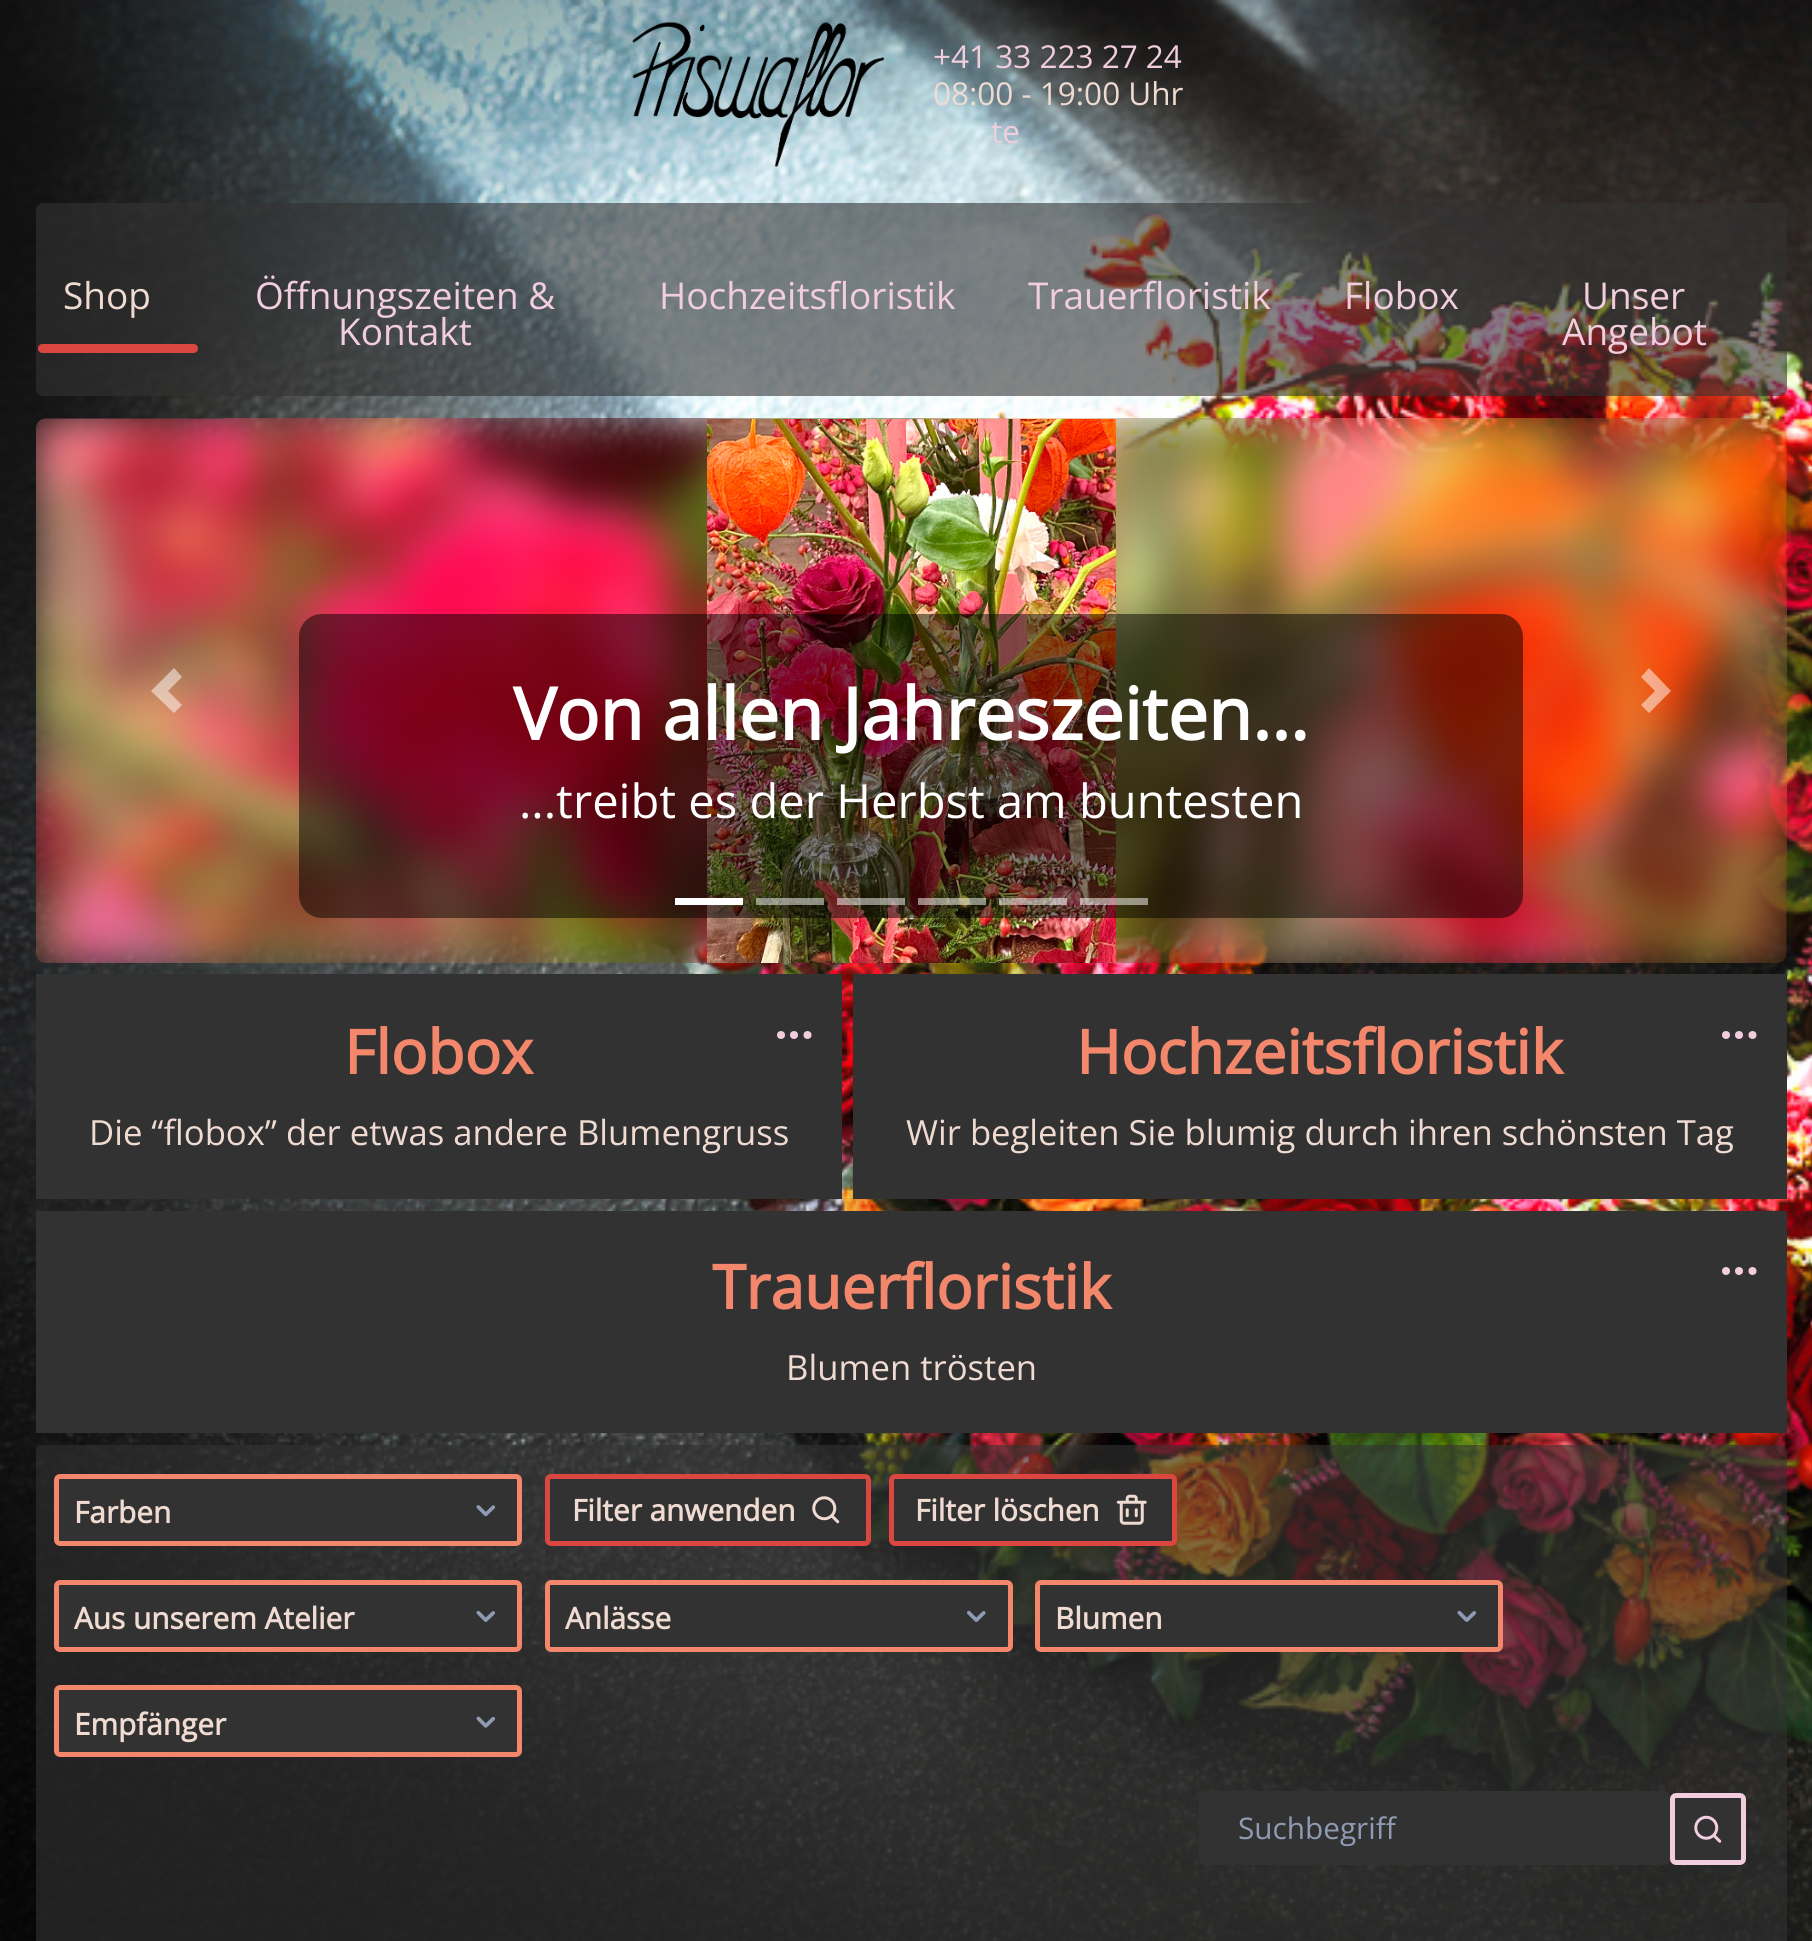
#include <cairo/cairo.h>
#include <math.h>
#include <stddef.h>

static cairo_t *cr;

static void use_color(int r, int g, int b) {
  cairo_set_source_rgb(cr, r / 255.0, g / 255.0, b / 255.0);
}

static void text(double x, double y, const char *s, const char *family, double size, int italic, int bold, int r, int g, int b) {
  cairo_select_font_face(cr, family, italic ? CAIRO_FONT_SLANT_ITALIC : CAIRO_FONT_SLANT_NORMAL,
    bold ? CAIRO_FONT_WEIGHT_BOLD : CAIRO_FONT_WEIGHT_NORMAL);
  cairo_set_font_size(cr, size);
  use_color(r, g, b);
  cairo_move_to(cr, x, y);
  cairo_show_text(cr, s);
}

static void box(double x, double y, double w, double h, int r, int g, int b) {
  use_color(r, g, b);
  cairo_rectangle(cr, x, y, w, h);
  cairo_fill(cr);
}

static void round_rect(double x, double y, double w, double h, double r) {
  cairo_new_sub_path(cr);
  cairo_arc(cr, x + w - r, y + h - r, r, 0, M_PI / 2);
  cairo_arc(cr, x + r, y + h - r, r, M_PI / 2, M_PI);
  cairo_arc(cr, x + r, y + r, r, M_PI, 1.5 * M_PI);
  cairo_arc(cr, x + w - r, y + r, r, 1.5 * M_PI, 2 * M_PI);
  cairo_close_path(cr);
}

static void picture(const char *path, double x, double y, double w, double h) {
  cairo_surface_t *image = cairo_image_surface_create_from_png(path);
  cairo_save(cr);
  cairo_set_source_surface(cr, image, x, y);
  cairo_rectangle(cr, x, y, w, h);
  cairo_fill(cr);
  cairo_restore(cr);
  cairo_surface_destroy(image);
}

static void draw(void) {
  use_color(255, 255, 255);
  cairo_paint(cr);
  picture("img_01.png", 0, 0, 1812, 1941);
  picture("img_02.png", 632, 22, 252, 145);
  picture("img_03.png", 36, 418, 1751, 545);
  cairo_set_source_rgba(cr, 1, 1, 1, 0.5);
  cairo_new_path(cr);
  cairo_move_to(cr, 174, 668);
  cairo_line_to(cr, 151, 691);
  cairo_line_to(cr, 174, 713);
  cairo_line_to(cr, 182, 705);
  cairo_line_to(cr, 168, 691);
  cairo_line_to(cr, 182, 677);
  cairo_close_path(cr);
  cairo_fill(cr);
  picture("img_04.png", 707, 419, 409, 544);
  cairo_set_source_rgba(cr, 0, 0, 0, 0.5);
  round_rect(299, 614, 1224, 304, 23);
  cairo_fill(cr);
  cairo_set_source_rgba(cr, 1, 1, 1, 0.5);
  cairo_new_path(cr);
  cairo_move_to(cr, 1649, 668);
  cairo_line_to(cr, 1641, 677);
  cairo_line_to(cr, 1655, 691);
  cairo_line_to(cr, 1641, 705);
  cairo_line_to(cr, 1649, 713);
  cairo_line_to(cr, 1671, 691);
  cairo_close_path(cr);
  cairo_fill(cr);
  box(675, 898, 68, 7, 255, 255, 255);
  cairo_set_source_rgba(cr, 1, 1, 1, 0.5);
  cairo_rectangle(cr, 756, 898, 68, 7);
  cairo_fill(cr);
  cairo_rectangle(cr, 837, 898, 68, 7);
  cairo_fill(cr);
  cairo_rectangle(cr, 918, 898, 68, 7);
  cairo_fill(cr);
  cairo_rectangle(cr, 999, 898, 68, 7);
  cairo_fill(cr);
  cairo_rectangle(cr, 1080, 898, 68, 7);
  cairo_fill(cr);
  box(36, 974, 806, 225, 50, 50, 50);
  use_color(241, 205, 222);
  cairo_arc(cr, 781, 1035, 4, 0, 2 * M_PI);
  cairo_fill(cr);
  cairo_arc(cr, 794, 1035, 4, 0, 2 * M_PI);
  cairo_fill(cr);
  cairo_arc(cr, 807.5, 1035, 4, 0, 2 * M_PI);
  cairo_fill(cr);
  box(853, 974, 934, 225, 50, 50, 50);
  use_color(241, 205, 222);
  cairo_arc(cr, 1726, 1035, 4, 0, 2 * M_PI);
  cairo_fill(cr);
  cairo_arc(cr, 1739, 1035, 4, 0, 2 * M_PI);
  cairo_fill(cr);
  cairo_arc(cr, 1752.5, 1035, 4, 0, 2 * M_PI);
  cairo_fill(cr);
  box(36, 1211, 1751, 222, 50, 50, 50);
  use_color(241, 205, 222);
  cairo_arc(cr, 1726, 1271, 4, 0, 2 * M_PI);
  cairo_fill(cr);
  cairo_arc(cr, 1739, 1271, 4, 0, 2 * M_PI);
  cairo_fill(cr);
  cairo_arc(cr, 1752.5, 1271, 4, 0, 2 * M_PI);
  cairo_fill(cr);
  cairo_set_source_rgba(cr, 0.196, 0.196, 0.196, 0.6);
  cairo_new_path(cr);
  cairo_move_to(cr, 42, 1445);
  cairo_line_to(cr, 1781, 1445);
  cairo_curve_to(cr, 1784.5, 1445, 1787, 1447.5, 1787, 1451);
  cairo_line_to(cr, 1787, 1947);
  cairo_line_to(cr, 36, 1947);
  cairo_line_to(cr, 36, 1451);
  cairo_curve_to(cr, 36, 1447.5, 38.5, 1445, 42, 1445);
  cairo_close_path(cr);
  cairo_fill(cr);
  use_color(50, 50, 50);
  round_rect(56.5, 1476.5, 463, 67, 3.5);
  cairo_fill_preserve(cr);
  use_color(243, 135, 107);
  cairo_set_line_width(cr, 5);
  cairo_stroke(cr);
  picture("img_05.png", 476, 1505, 20, 12);
  use_color(50, 50, 50);
  round_rect(547.5, 1476.5, 321, 67, 3.5);
  cairo_fill_preserve(cr);
  use_color(219, 71, 64);
  cairo_stroke(cr);
  picture("img_06.png", 812, 1496, 28, 28);
  use_color(50, 50, 50);
  round_rect(891.5, 1476.5, 283, 67, 3.5);
  cairo_fill_preserve(cr);
  use_color(219, 71, 64);
  cairo_stroke(cr);
  picture("img_07.png", 1116, 1494, 31, 31);
  use_color(50, 50, 50);
  round_rect(56.5, 1582.5, 463, 67, 3.5);
  cairo_fill_preserve(cr);
  use_color(243, 135, 107);
  cairo_stroke(cr);
  picture("img_08.png", 476, 1610, 20, 12);
  use_color(50, 50, 50);
  round_rect(547.5, 1582.5, 463, 67, 3.5);
  cairo_fill_preserve(cr);
  use_color(243, 135, 107);
  cairo_stroke(cr);
  picture("img_09.png", 967, 1610, 19, 12);
  use_color(50, 50, 50);
  round_rect(1037.5, 1582.5, 463, 67, 3.5);
  cairo_fill_preserve(cr);
  use_color(243, 135, 107);
  cairo_stroke(cr);
  picture("img_08.png", 1457, 1610, 20, 12);
  use_color(50, 50, 50);
  round_rect(56.5, 1687.5, 463, 67, 3.5);
  cairo_fill_preserve(cr);
  use_color(243, 135, 107);
  cairo_stroke(cr);
  picture("img_10.png", 476, 1716, 20, 12);
  use_color(50, 50, 50);
  round_rect(1199, 1791, 471, 74, 6);
  cairo_fill(cr);
  round_rect(1672.5, 1795.5, 71, 67, 3.5);
  cairo_fill_preserve(cr);
  use_color(241, 205, 222);
  cairo_stroke(cr);
  picture("img_11.png", 1694, 1815, 28, 28);
  cairo_set_source_rgba(cr, 0.196, 0.196, 0.196, 0.6);
  round_rect(36, 203, 1751, 193, 7);
  cairo_fill(cr);
  use_color(219, 71, 64);
  round_rect(38, 344, 160, 9, 4.5);
  cairo_fill(cr);
  text(933, 68, "+41 33 223 27 24", "Open Sans", 31.5, 0, 0, 241, 205, 222);
  text(933, 105, "08:00 - 19:00 Uhr", "Open Sans", 31.5, 0, 0, 239, 219, 209);
  text(991, 143, "te", "Open Sans", 31.5, 0, 0, 241, 205, 222);
  text(513, 740, "Von allen Jahreszeiten...", "Open Sans", 72, 0, 1, 255, 255, 255);
  text(519, 818, "...treibt es der Herbst am buntesten", "Open Sans", 47.1, 0, 0, 255, 255, 255);
  text(344, 1074, "Flobox", "Open Sans", 60.75, 0, 1, 243, 135, 107);
  text(89, 1145, "Die “flobox” der etwas andere Blumengruss", "Open Sans", 34.65, 0, 0, 239, 219, 209);
  text(1076, 1074, "Hochzeitsfloristik", "Open Sans", 60.75, 0, 1, 243, 135, 107);
  text(906, 1145, "Wir begleiten Sie blumig durch ihren schönsten Tag", "Open Sans", 34.65, 0, 0, 239, 219, 209);
  text(712, 1309, "Trauerfloristik", "Open Sans", 60.75, 0, 1, 243, 135, 107);
  text(786, 1380, "Blumen trösten", "Open Sans", 34.65, 0, 0, 239, 219, 209);
  text(74, 1523, "Farben", "Open Sans", 29.75, 0, 1, 239, 219, 209);
  text(572, 1521, "Filter anwenden", "Open Sans", 29.75, 0, 1, 239, 219, 209);
  text(915, 1521, "Filter löschen", "Open Sans", 29.75, 0, 1, 239, 219, 209);
  text(74, 1629, "Aus unserem Atelier", "Open Sans", 29.75, 0, 1, 239, 219, 209);
  text(565, 1629, "Anlässe", "Open Sans", 29.75, 0, 1, 239, 219, 209);
  text(1055, 1629, "Blumen", "Open Sans", 29.75, 0, 1, 239, 219, 209);
  text(74, 1735, "Empfänger", "Open Sans", 29.75, 0, 1, 239, 219, 209);
  text(1238, 1839, "Suchbegriff", "Open Sans", 29.75, 0, 0, 143, 155, 179);
  text(63, 309, "Shop", "Open Sans", 37, 0, 0, 239, 219, 209);
  text(255, 309, "Öffnungszeiten &", "Open Sans", 37, 0, 0, 241, 205, 222);
  text(338, 345, "Kontakt", "Open Sans", 37, 0, 0, 241, 205, 222);
  text(659, 309, "Hochzeitsfloristik", "Open Sans", 37, 0, 0, 241, 205, 222);
  text(1028, 309, "Trauerfloristik", "Open Sans", 37, 0, 0, 241, 205, 222);
  text(1344, 309, "Flobox", "Open Sans", 37, 0, 0, 241, 205, 222);
  text(1582, 309, "Unser", "Open Sans", 37, 0, 0, 241, 205, 222);
  text(1562, 345, "Angebot", "Open Sans", 37, 0, 0, 241, 205, 222);
}

int main(void) {
  cairo_surface_t *surface = cairo_image_surface_create(CAIRO_FORMAT_RGB24, 1812, 1941);
  cr = cairo_create(surface);
  cairo_font_options_t *options = cairo_font_options_create();
  cairo_font_options_set_hint_metrics(options, CAIRO_HINT_METRICS_OFF);
  cairo_font_options_set_hint_style(options, CAIRO_HINT_STYLE_NONE);
  cairo_set_font_options(cr, options);
  cairo_set_miter_limit(cr, 4);
  draw();
  cairo_surface_write_to_png(surface, "out.png");
  cairo_font_options_destroy(options);
  cairo_destroy(cr);
  cairo_surface_destroy(surface);
  return 0;
}
